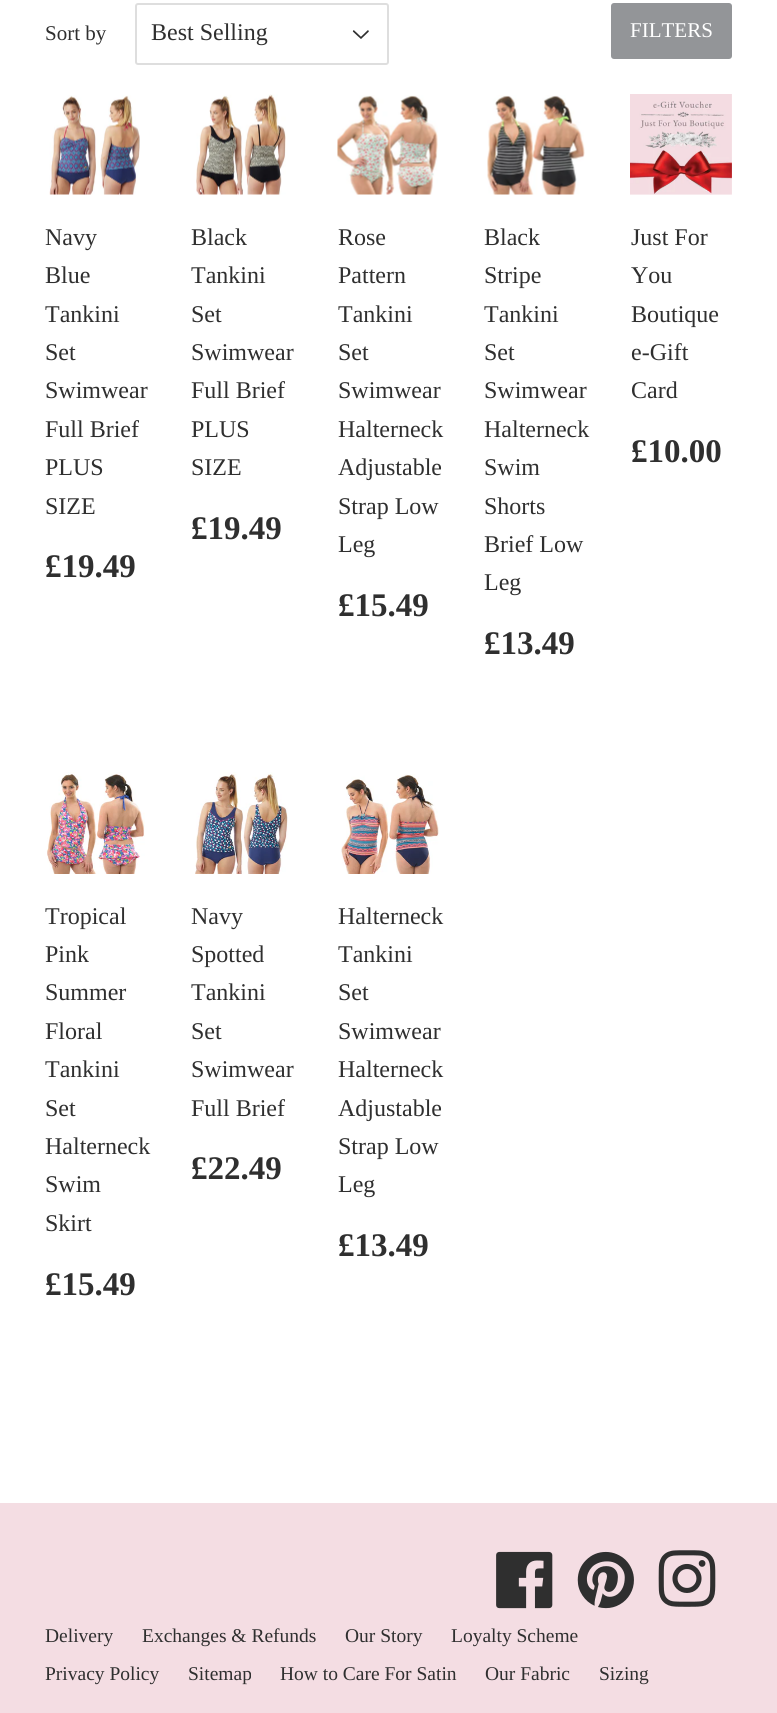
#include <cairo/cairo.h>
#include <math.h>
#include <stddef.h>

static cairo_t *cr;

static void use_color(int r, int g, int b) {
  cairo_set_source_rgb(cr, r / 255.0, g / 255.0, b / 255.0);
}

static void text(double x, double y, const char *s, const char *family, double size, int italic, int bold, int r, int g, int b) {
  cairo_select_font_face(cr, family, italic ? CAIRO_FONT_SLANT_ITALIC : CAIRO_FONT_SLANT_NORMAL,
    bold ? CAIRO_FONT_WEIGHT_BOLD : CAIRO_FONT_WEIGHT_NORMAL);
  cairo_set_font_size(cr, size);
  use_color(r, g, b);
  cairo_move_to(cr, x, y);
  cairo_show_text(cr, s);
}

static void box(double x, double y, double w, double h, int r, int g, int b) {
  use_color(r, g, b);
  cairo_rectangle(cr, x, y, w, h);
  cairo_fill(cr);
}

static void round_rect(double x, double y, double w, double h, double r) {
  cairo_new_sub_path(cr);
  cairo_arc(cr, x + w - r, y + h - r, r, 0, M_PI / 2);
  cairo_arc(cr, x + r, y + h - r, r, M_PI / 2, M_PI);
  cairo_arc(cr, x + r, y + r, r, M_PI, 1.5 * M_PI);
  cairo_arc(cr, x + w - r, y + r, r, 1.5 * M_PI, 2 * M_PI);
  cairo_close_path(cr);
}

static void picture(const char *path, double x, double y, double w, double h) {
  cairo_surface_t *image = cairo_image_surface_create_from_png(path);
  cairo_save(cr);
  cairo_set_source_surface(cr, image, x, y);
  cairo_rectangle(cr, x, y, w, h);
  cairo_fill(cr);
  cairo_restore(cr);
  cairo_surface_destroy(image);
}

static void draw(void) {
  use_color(255, 255, 255);
  cairo_paint(cr);
  picture("img_01.png", 352, 30, 17, 9);
  round_rect(136, 4, 252, 60, 2);
  use_color(222, 222, 222);
  cairo_stroke(cr);
  use_color(147, 149, 152);
  round_rect(611, 3, 121, 56, 3);
  cairo_fill(cr);
  picture("img_02.png", 49, 95, 91, 100);
  picture("img_03.png", 196, 94, 90, 101);
  picture("img_04.png", 337, 95, 101, 100);
  picture("img_05.png", 487, 95, 98, 100);
  picture("img_06.png", 630, 94, 102, 101);
  picture("img_07.png", 47, 772, 98, 102);
  picture("img_08.png", 195, 772, 93, 102);
  picture("img_09.png", 341, 774, 98, 100);
  box(0, 1503, 777, 210, 244, 221, 227);
  picture("img_10.png", 496, 1551, 57, 58);
  picture("img_11.png", 577, 1551, 57, 58);
  picture("img_12.png", 658, 1550, 58, 57);
  text(45, 40, "Sort by", "Liberation Serif", 21, 0, 0, 47, 47, 47);
  text(151, 40, "Best Selling", "Liberation Serif", 24, 0, 0, 47, 47, 47);
  text(630, 37, "FILTERS", "Liberation Serif", 21, 0, 0, 255, 255, 255);
  text(45, 245, "Navy", "Liberation Serif", 24, 0, 0, 47, 47, 47);
  text(45, 283, "Blue", "Liberation Serif", 24, 0, 0, 47, 47, 47);
  text(45, 322, "Tankini", "Liberation Serif", 24, 0, 0, 47, 47, 47);
  text(45, 360, "Set", "Liberation Serif", 24, 0, 0, 47, 47, 47);
  text(45, 398, "Swimwear", "Liberation Serif", 24, 0, 0, 47, 47, 47);
  text(45, 437, "Full Brief", "Liberation Serif", 24, 0, 0, 47, 47, 47);
  text(45, 475, "PLUS", "Liberation Serif", 24, 0, 0, 47, 47, 47);
  text(45, 514, "SIZE", "Liberation Serif", 24, 0, 0, 47, 47, 47);
  text(45, 577, "£19.49", "Liberation Serif", 33, 0, 1, 47, 47, 47);
  text(191, 245, "Black", "Liberation Serif", 24, 0, 0, 47, 47, 47);
  text(191, 283, "Tankini", "Liberation Serif", 24, 0, 0, 47, 47, 47);
  text(191, 322, "Set", "Liberation Serif", 24, 0, 0, 47, 47, 47);
  text(191, 360, "Swimwear", "Liberation Serif", 24, 0, 0, 47, 47, 47);
  text(191, 398, "Full Brief", "Liberation Serif", 24, 0, 0, 47, 47, 47);
  text(191, 437, "PLUS", "Liberation Serif", 24, 0, 0, 47, 47, 47);
  text(191, 475, "SIZE", "Liberation Serif", 24, 0, 0, 47, 47, 47);
  text(191, 539, "£19.49", "Liberation Serif", 33, 0, 1, 47, 47, 47);
  text(338, 245, "Rose", "Liberation Serif", 24, 0, 0, 47, 47, 47);
  text(338, 283, "Pattern", "Liberation Serif", 24, 0, 0, 47, 47, 47);
  text(338, 322, "Tankini", "Liberation Serif", 24, 0, 0, 47, 47, 47);
  text(338, 360, "Set", "Liberation Serif", 24, 0, 0, 47, 47, 47);
  text(338, 398, "Swimwear", "Liberation Serif", 24, 0, 0, 47, 47, 47);
  text(338, 437, "Halterneck", "Liberation Serif", 24, 0, 0, 47, 47, 47);
  text(338, 475, "Adjustable", "Liberation Serif", 24, 0, 0, 47, 47, 47);
  text(338, 514, "Strap Low", "Liberation Serif", 24, 0, 0, 47, 47, 47);
  text(338, 552, "Leg", "Liberation Serif", 24, 0, 0, 47, 47, 47);
  text(338, 616, "£15.49", "Liberation Serif", 33, 0, 1, 47, 47, 47);
  text(484, 245, "Black", "Liberation Serif", 24, 0, 0, 47, 47, 47);
  text(484, 283, "Stripe", "Liberation Serif", 24, 0, 0, 47, 47, 47);
  text(484, 322, "Tankini", "Liberation Serif", 24, 0, 0, 47, 47, 47);
  text(484, 360, "Set", "Liberation Serif", 24, 0, 0, 47, 47, 47);
  text(484, 398, "Swimwear", "Liberation Serif", 24, 0, 0, 47, 47, 47);
  text(484, 437, "Halterneck", "Liberation Serif", 24, 0, 0, 47, 47, 47);
  text(484, 475, "Swim", "Liberation Serif", 24, 0, 0, 47, 47, 47);
  text(484, 514, "Shorts", "Liberation Serif", 24, 0, 0, 47, 47, 47);
  text(484, 552, "Brief Low", "Liberation Serif", 24, 0, 0, 47, 47, 47);
  text(484, 590, "Leg", "Liberation Serif", 24, 0, 0, 47, 47, 47);
  text(484, 654, "£13.49", "Liberation Serif", 33, 0, 1, 47, 47, 47);
  text(631, 245, "Just For", "Liberation Serif", 24, 0, 0, 47, 47, 47);
  text(631, 283, "You", "Liberation Serif", 24, 0, 0, 47, 47, 47);
  text(631, 322, "Boutique", "Liberation Serif", 24, 0, 0, 47, 47, 47);
  text(631, 360, "e-Gift", "Liberation Serif", 24, 0, 0, 47, 47, 47);
  text(631, 398, "Card", "Liberation Serif", 24, 0, 0, 47, 47, 47);
  text(631, 462, "£10.00", "Liberation Serif", 33, 0, 1, 47, 47, 47);
  text(45, 924, "Tropical", "Liberation Serif", 24, 0, 0, 47, 47, 47);
  text(45, 962, "Pink", "Liberation Serif", 24, 0, 0, 47, 47, 47);
  text(45, 1000, "Summer", "Liberation Serif", 24, 0, 0, 47, 47, 47);
  text(45, 1039, "Floral", "Liberation Serif", 24, 0, 0, 47, 47, 47);
  text(45, 1077, "Tankini", "Liberation Serif", 24, 0, 0, 47, 47, 47);
  text(45, 1116, "Set", "Liberation Serif", 24, 0, 0, 47, 47, 47);
  text(45, 1154, "Halterneck", "Liberation Serif", 24, 0, 0, 47, 47, 47);
  text(45, 1192, "Swim", "Liberation Serif", 24, 0, 0, 47, 47, 47);
  text(45, 1231, "Skirt", "Liberation Serif", 24, 0, 0, 47, 47, 47);
  text(45, 1295, "£15.49", "Liberation Serif", 33, 0, 1, 47, 47, 47);
  text(191, 924, "Navy", "Liberation Serif", 24, 0, 0, 47, 47, 47);
  text(191, 962, "Spotted", "Liberation Serif", 24, 0, 0, 47, 47, 47);
  text(191, 1000, "Tankini", "Liberation Serif", 24, 0, 0, 47, 47, 47);
  text(191, 1039, "Set", "Liberation Serif", 24, 0, 0, 47, 47, 47);
  text(191, 1077, "Swimwear", "Liberation Serif", 24, 0, 0, 47, 47, 47);
  text(191, 1116, "Full Brief", "Liberation Serif", 24, 0, 0, 47, 47, 47);
  text(191, 1179, "£22.49", "Liberation Serif", 33, 0, 1, 47, 47, 47);
  text(338, 924, "Halterneck", "Liberation Serif", 24, 0, 0, 47, 47, 47);
  text(338, 962, "Tankini", "Liberation Serif", 24, 0, 0, 47, 47, 47);
  text(338, 1000, "Set", "Liberation Serif", 24, 0, 0, 47, 47, 47);
  text(338, 1039, "Swimwear", "Liberation Serif", 24, 0, 0, 47, 47, 47);
  text(338, 1077, "Halterneck", "Liberation Serif", 24, 0, 0, 47, 47, 47);
  text(338, 1116, "Adjustable", "Liberation Serif", 24, 0, 0, 47, 47, 47);
  text(338, 1154, "Strap Low", "Liberation Serif", 24, 0, 0, 47, 47, 47);
  text(338, 1192, "Leg", "Liberation Serif", 24, 0, 0, 47, 47, 47);
  text(338, 1256, "£13.49", "Liberation Serif", 33, 0, 1, 47, 47, 47);
  text(45, 1642, "Delivery", "Liberation Serif", 19.5, 0, 0, 47, 47, 47);
  text(142, 1642, "Exchanges & Refunds", "Liberation Serif", 19.5, 0, 0, 47, 47, 47);
  text(345, 1642, "Our Story", "Liberation Serif", 19.5, 0, 0, 47, 47, 47);
  text(451, 1642, "Loyalty Scheme", "Liberation Serif", 19.5, 0, 0, 47, 47, 47);
  text(45, 1680, "Privacy Policy", "Liberation Serif", 19.5, 0, 0, 47, 47, 47);
  text(188, 1680, "Sitemap", "Liberation Serif", 19.5, 0, 0, 47, 47, 47);
  text(280, 1680, "How to Care For Satin", "Liberation Serif", 19.5, 0, 0, 47, 47, 47);
  text(485, 1680, "Our Fabric", "Liberation Serif", 19.5, 0, 0, 47, 47, 47);
  text(599, 1680, "Sizing", "Liberation Serif", 19.5, 0, 0, 47, 47, 47);
}

int main(void) {
  cairo_surface_t *surface = cairo_image_surface_create(CAIRO_FORMAT_RGB24, 777, 1713);
  cr = cairo_create(surface);
  cairo_font_options_t *options = cairo_font_options_create();
  cairo_font_options_set_hint_metrics(options, CAIRO_HINT_METRICS_OFF);
  cairo_font_options_set_hint_style(options, CAIRO_HINT_STYLE_NONE);
  cairo_set_font_options(cr, options);
  cairo_set_miter_limit(cr, 4);
  draw();
  cairo_surface_write_to_png(surface, "out.png");
  cairo_font_options_destroy(options);
  cairo_destroy(cr);
  cairo_surface_destroy(surface);
  return 0;
}
